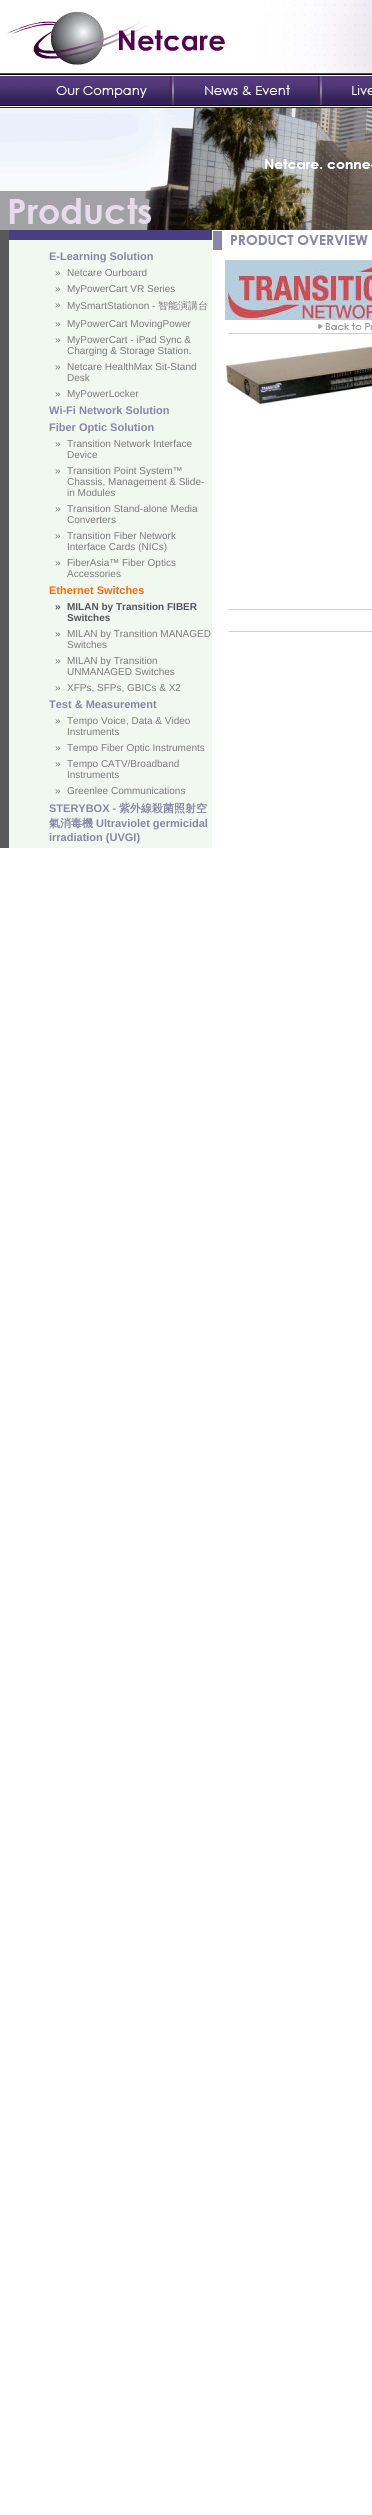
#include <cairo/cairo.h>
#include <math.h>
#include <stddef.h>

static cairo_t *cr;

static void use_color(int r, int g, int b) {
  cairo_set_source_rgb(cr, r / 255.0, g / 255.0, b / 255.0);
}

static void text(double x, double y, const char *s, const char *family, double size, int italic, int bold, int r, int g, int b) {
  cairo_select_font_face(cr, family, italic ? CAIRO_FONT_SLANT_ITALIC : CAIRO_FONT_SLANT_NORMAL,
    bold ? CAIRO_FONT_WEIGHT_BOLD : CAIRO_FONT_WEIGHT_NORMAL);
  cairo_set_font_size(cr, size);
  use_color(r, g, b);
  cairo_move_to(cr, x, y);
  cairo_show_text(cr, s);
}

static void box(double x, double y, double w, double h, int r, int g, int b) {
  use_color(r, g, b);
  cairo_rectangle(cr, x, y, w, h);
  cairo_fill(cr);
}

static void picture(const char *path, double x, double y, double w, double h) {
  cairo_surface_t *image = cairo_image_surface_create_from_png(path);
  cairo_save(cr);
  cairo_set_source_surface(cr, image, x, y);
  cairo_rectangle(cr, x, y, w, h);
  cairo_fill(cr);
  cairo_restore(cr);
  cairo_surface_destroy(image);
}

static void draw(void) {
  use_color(255, 255, 255);
  cairo_paint(cr);
  picture("img_01.png", 7, 0, 317, 73);
  picture("img_02.png", 324, 0, 48, 73);
  picture("img_03.png", 0, 73, 28, 35);
  picture("img_04.png", 28, 73, 148, 35);
  picture("img_05.png", 176, 73, 148, 35);
  picture("img_06.png", 324, 73, 48, 35);
  picture("img_07.png", 0, 108, 372, 122);
  box(0, 230, 9, 618, 88, 89, 91);
  box(9, 240, 203, 608, 241, 248, 239);
  box(9, 230, 203, 10, 73, 62, 130);
  picture("img_08.png", 213, 231, 155, 19);
  picture("img_09.png", 225, 260, 147, 60);
  picture("img_10.png", 318, 323, 54, 7);
  picture("img_11.png", 228, 333, 144, 1);
  picture("img_12.png", 225, 345, 147, 60);
  picture("img_11.png", 228, 609, 144, 1);
  picture("img_11.png", 228, 631, 144, 1);
  text(49, 260, "E-Learning Solution", "Liberation Sans", 11, 0, 1, 135, 134, 168);
  text(55, 276, "»", "Liberation Sans", 10, 0, 0, 122, 122, 124);
  text(67, 276, "Netcare Ourboard", "Liberation Sans", 10, 0, 0, 122, 122, 124);
  text(55, 292, "»", "Liberation Sans", 10, 0, 0, 122, 122, 124);
  text(67, 292, "MyPowerCart VR Series", "Liberation Sans", 10, 0, 0, 122, 122, 124);
  text(55, 308, "»", "Liberation Sans", 10, 0, 0, 122, 122, 124);
  text(67, 309, "MySmartStationon -", "Liberation Sans", 10, 0, 0, 122, 122, 124);
  text(158, 309, "智能演講台", "WenQuanYi Zen Hei Medium", 10, 0, 0, 122, 122, 124);
  text(55, 327, "»", "Liberation Sans", 10, 0, 0, 122, 122, 124);
  text(67, 327, "MyPowerCart MovingPower", "Liberation Sans", 10, 0, 0, 122, 122, 124);
  text(55, 343, "»", "Liberation Sans", 10, 0, 0, 122, 122, 124);
  text(67, 343, "MyPowerCart - iPad Sync &", "Liberation Sans", 10, 0, 0, 122, 122, 124);
  text(67, 354, "Charging & Storage Station.", "Liberation Sans", 10, 0, 0, 122, 122, 124);
  text(55, 370, "»", "Liberation Sans", 10, 0, 0, 122, 122, 124);
  text(67, 370, "Netcare HealthMax Sit-Stand", "Liberation Sans", 10, 0, 0, 122, 122, 124);
  text(67, 381, "Desk", "Liberation Sans", 10, 0, 0, 122, 122, 124);
  text(55, 397, "»", "Liberation Sans", 10, 0, 0, 122, 122, 124);
  text(67, 397, "MyPowerLocker", "Liberation Sans", 10, 0, 0, 122, 122, 124);
  text(49, 414, "Wi-Fi Network Solution", "Liberation Sans", 11, 0, 1, 135, 134, 168);
  text(49, 431, "Fiber Optic Solution", "Liberation Sans", 11, 0, 1, 135, 134, 168);
  text(55, 447, "»", "Liberation Sans", 10, 0, 0, 122, 122, 124);
  text(67, 447, "Transition Network Interface", "Liberation Sans", 10, 0, 0, 122, 122, 124);
  text(67, 458, "Device", "Liberation Sans", 10, 0, 0, 122, 122, 124);
  text(55, 474, "»", "Liberation Sans", 10, 0, 0, 122, 122, 124);
  text(67, 474, "Transition Point System™", "Liberation Sans", 10, 0, 0, 122, 122, 124);
  text(67, 485, "Chassis, Management & Slide-", "Liberation Sans", 10, 0, 0, 122, 122, 124);
  text(67, 496, "in Modules", "Liberation Sans", 10, 0, 0, 122, 122, 124);
  text(55, 512, "»", "Liberation Sans", 10, 0, 0, 122, 122, 124);
  text(67, 512, "Transition Stand-alone Media", "Liberation Sans", 10, 0, 0, 122, 122, 124);
  text(67, 523, "Converters", "Liberation Sans", 10, 0, 0, 122, 122, 124);
  text(55, 539, "»", "Liberation Sans", 10, 0, 0, 122, 122, 124);
  text(67, 539, "Transition Fiber Network", "Liberation Sans", 10, 0, 0, 122, 122, 124);
  text(67, 550, "Interface Cards (NICs)", "Liberation Sans", 10, 0, 0, 122, 122, 124);
  text(55, 566, "»", "Liberation Sans", 10, 0, 0, 122, 122, 124);
  text(67, 566, "FiberAsia™ Fiber Optics", "Liberation Sans", 10, 0, 0, 122, 122, 124);
  text(67, 577, "Accessories", "Liberation Sans", 10, 0, 0, 122, 122, 124);
  text(49, 594, "Ethernet Switches", "Liberation Sans", 11, 0, 1, 243, 107, 17);
  text(55, 610, "»", "Liberation Sans", 10, 0, 1, 85, 85, 94);
  text(67, 610, "MILAN by Transition FIBER", "Liberation Sans", 10, 0, 1, 85, 85, 94);
  text(67, 621, "Switches", "Liberation Sans", 10, 0, 1, 85, 85, 94);
  text(55, 637, "»", "Liberation Sans", 10, 0, 0, 122, 122, 124);
  text(67, 637, "MILAN by Transition MANAGED", "Liberation Sans", 10, 0, 0, 122, 122, 124);
  text(67, 648, "Switches", "Liberation Sans", 10, 0, 0, 122, 122, 124);
  text(55, 664, "»", "Liberation Sans", 10, 0, 0, 122, 122, 124);
  text(67, 664, "MILAN by Transition", "Liberation Sans", 10, 0, 0, 122, 122, 124);
  text(67, 675, "UNMANAGED Switches", "Liberation Sans", 10, 0, 0, 122, 122, 124);
  text(55, 691, "»", "Liberation Sans", 10, 0, 0, 122, 122, 124);
  text(67, 691, "XFPs, SFPs, GBICs & X2", "Liberation Sans", 10, 0, 0, 122, 122, 124);
  text(49, 708, "Test & Measurement", "Liberation Sans", 11, 0, 1, 135, 134, 168);
  text(55, 724, "»", "Liberation Sans", 10, 0, 0, 122, 122, 124);
  text(67, 724, "Tempo Voice, Data & Video", "Liberation Sans", 10, 0, 0, 122, 122, 124);
  text(67, 735, "Instruments", "Liberation Sans", 10, 0, 0, 122, 122, 124);
  text(55, 751, "»", "Liberation Sans", 10, 0, 0, 122, 122, 124);
  text(67, 751, "Tempo Fiber Optic Instruments", "Liberation Sans", 10, 0, 0, 122, 122, 124);
  text(55, 767, "»", "Liberation Sans", 10, 0, 0, 122, 122, 124);
  text(67, 767, "Tempo CATV/Broadband", "Liberation Sans", 10, 0, 0, 122, 122, 124);
  text(67, 778, "Instruments", "Liberation Sans", 10, 0, 0, 122, 122, 124);
  text(55, 794, "»", "Liberation Sans", 10, 0, 0, 122, 122, 124);
  text(67, 794, "Greenlee Communications", "Liberation Sans", 10, 0, 0, 122, 122, 124);
  text(49, 812, "STERYBOX -", "Liberation Sans", 11, 0, 1, 135, 134, 168);
  text(119, 812, "紫外線殺菌照射空", "WenQuanYi Zen Hei", 11, 0, 1, 135, 134, 168);
  text(49, 827, "氣消毒機", "WenQuanYi Zen Hei", 11, 0, 1, 135, 134, 168);
  text(96, 827, "Ultraviolet germicidal", "Liberation Sans", 11, 0, 1, 135, 134, 168);
  text(49, 841, "irradiation (UVGI)", "Liberation Sans", 11, 0, 1, 135, 134, 168);
}

int main(void) {
  cairo_surface_t *surface = cairo_image_surface_create(CAIRO_FORMAT_RGB24, 372, 2515);
  cr = cairo_create(surface);
  cairo_font_options_t *options = cairo_font_options_create();
  cairo_font_options_set_hint_metrics(options, CAIRO_HINT_METRICS_OFF);
  cairo_font_options_set_hint_style(options, CAIRO_HINT_STYLE_NONE);
  cairo_set_font_options(cr, options);
  cairo_set_miter_limit(cr, 4);
  draw();
  cairo_surface_write_to_png(surface, "out.png");
  cairo_font_options_destroy(options);
  cairo_destroy(cr);
  cairo_surface_destroy(surface);
  return 0;
}
